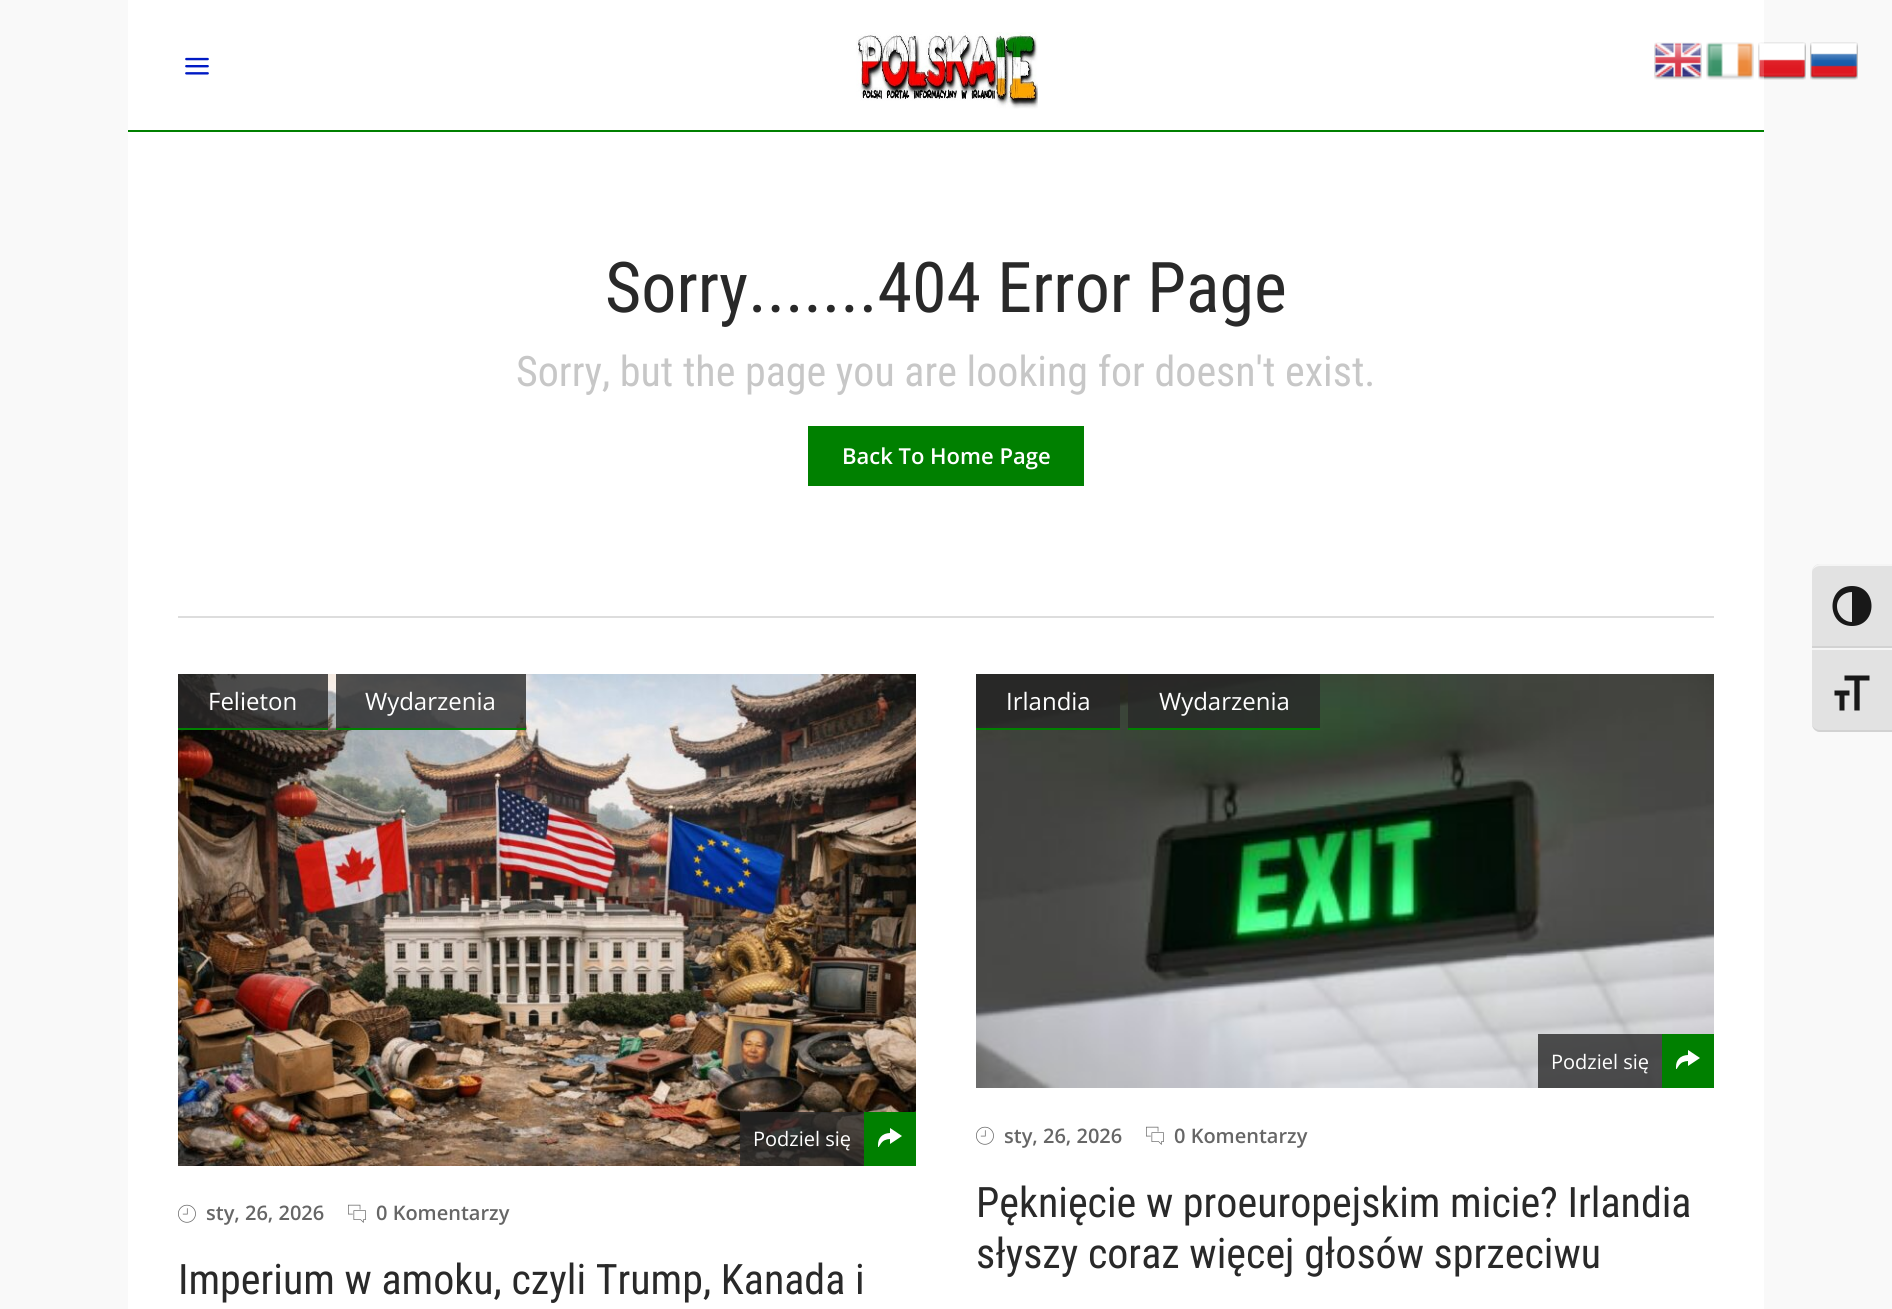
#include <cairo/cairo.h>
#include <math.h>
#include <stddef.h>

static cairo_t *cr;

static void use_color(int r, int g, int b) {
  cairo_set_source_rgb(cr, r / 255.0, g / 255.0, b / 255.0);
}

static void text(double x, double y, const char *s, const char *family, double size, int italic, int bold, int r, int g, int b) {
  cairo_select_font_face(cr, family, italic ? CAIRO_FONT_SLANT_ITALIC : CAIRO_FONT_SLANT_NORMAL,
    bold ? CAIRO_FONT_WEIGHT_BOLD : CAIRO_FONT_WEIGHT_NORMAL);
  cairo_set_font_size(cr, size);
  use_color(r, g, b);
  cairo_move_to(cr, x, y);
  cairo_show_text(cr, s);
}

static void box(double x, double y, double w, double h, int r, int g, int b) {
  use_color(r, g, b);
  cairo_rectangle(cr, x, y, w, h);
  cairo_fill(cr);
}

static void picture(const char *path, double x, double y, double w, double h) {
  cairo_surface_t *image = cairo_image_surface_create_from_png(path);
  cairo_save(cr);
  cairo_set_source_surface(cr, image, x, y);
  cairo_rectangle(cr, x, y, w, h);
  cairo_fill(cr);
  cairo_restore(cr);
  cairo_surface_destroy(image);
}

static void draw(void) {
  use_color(249, 249, 249);
  cairo_paint(cr);
  box(128, 0, 1636, 130, 255, 255, 255);
  picture("img_01.png", 1654, 42, 48, 38);
  picture("img_02.png", 1706, 42, 48, 38);
  picture("img_07.png", 1764, 42, 42, 38);
  picture("img_03.png", 1758, 42, 48, 38);
  picture("img_08.png", 1810, 42, 48, 38);
  picture("img_04.png", 1810, 42, 48, 38);
  box(128, 130, 1636, 2, 0, 128, 0);
  picture("img_05.png", 185, 57, 24, 18);
  picture("img_06.png", 856, 32, 182, 77);
  box(128, 132, 1636, 1177, 255, 255, 255);
  box(808, 426, 276, 60, 0, 128, 0);
  box(178, 616, 1536, 2, 221, 221, 221);
  picture("img_09.png", 178, 674, 738, 492);
  cairo_set_source_rgba(cr, 0.161, 0.161, 0.161, 0.8);
  cairo_rectangle(cr, 178, 674, 150, 54);
  cairo_fill(cr);
  box(178, 728, 150, 2, 0, 128, 0);
  cairo_set_source_rgba(cr, 0.161, 0.161, 0.161, 0.8);
  cairo_rectangle(cr, 336, 674, 190, 54);
  cairo_fill(cr);
  box(336, 728, 190, 2, 0, 128, 0);
  cairo_set_source_rgba(cr, 0.161, 0.161, 0.161, 0.8);
  cairo_rectangle(cr, 740, 1112, 124, 54);
  cairo_fill(cr);
  box(864, 1112, 52, 54, 0, 128, 0);
  picture("img_10.png", 878, 1128, 24, 19);
  picture("img_11.png", 178, 1204, 18, 19);
  picture("img_12.png", 348, 1204, 18, 19);
  picture("img_13.png", 976, 674, 738, 414);
  cairo_set_source_rgba(cr, 0.161, 0.161, 0.161, 0.8);
  cairo_rectangle(cr, 976, 674, 144, 54);
  cairo_fill(cr);
  box(976, 728, 144, 2, 0, 128, 0);
  cairo_set_source_rgba(cr, 0.161, 0.161, 0.161, 0.8);
  cairo_rectangle(cr, 1128, 674, 192, 54);
  cairo_fill(cr);
  box(1128, 728, 192, 2, 0, 128, 0);
  cairo_set_source_rgba(cr, 0.161, 0.161, 0.161, 0.8);
  cairo_rectangle(cr, 1538, 1034, 124, 54);
  cairo_fill(cr);
  box(1662, 1034, 52, 54, 0, 128, 0);
  picture("img_10.png", 1676, 1050, 24, 19);
  picture("img_11.png", 976, 1126, 18, 19);
  picture("img_12.png", 1146, 1126, 18, 19);
  use_color(226, 226, 226);
  cairo_new_path(cr);
  cairo_move_to(cr, 1820, 564);
  cairo_line_to(cr, 1892, 564);
  cairo_line_to(cr, 1892, 648);
  cairo_line_to(cr, 1812, 648);
  cairo_line_to(cr, 1812, 572);
  cairo_curve_to(cr, 1812, 567.5, 1815.5, 564, 1820, 564);
  cairo_close_path(cr);
  cairo_fill(cr);
  use_color(245, 245, 245);
  cairo_new_path(cr);
  cairo_move_to(cr, 1820, 566);
  cairo_line_to(cr, 1892, 566);
  cairo_line_to(cr, 1892, 564);
  cairo_line_to(cr, 1820, 564);
  cairo_curve_to(cr, 1816, 564, 1812, 568, 1812, 572);
  cairo_curve_to(cr, 1812, 569, 1816, 566, 1820, 566);
  cairo_close_path(cr);
  cairo_fill(cr);
  box(1812, 646, 80, 2, 210, 210, 210);
  use_color(24, 24, 24);
  cairo_new_path(cr);
  cairo_move_to(cr, 1852, 586);
  cairo_curve_to(cr, 1826, 586, 1826, 626, 1852, 626);
  cairo_curve_to(cr, 1878, 626, 1878, 586, 1852, 586);
  cairo_close_path(cr);
  cairo_move_to(cr, 1837, 606);
  cairo_curve_to(cr, 1837, 598, 1844, 592, 1852, 592);
  cairo_line_to(cr, 1852, 622);
  cairo_curve_to(cr, 1844, 622, 1837, 615, 1837, 606);
  cairo_close_path(cr);
  cairo_fill(cr);
  use_color(226, 226, 226);
  cairo_new_path(cr);
  cairo_move_to(cr, 1812, 648);
  cairo_line_to(cr, 1892, 648);
  cairo_line_to(cr, 1892, 732);
  cairo_line_to(cr, 1820, 732);
  cairo_curve_to(cr, 1815.5, 732, 1812, 728.5, 1812, 724);
  cairo_close_path(cr);
  cairo_fill(cr);
  box(1812, 648, 80, 2, 245, 245, 245);
  use_color(210, 210, 210);
  cairo_new_path(cr);
  cairo_move_to(cr, 1892, 732);
  cairo_line_to(cr, 1892, 730);
  cairo_line_to(cr, 1820, 730);
  cairo_curve_to(cr, 1816, 730, 1812, 727, 1812, 724);
  cairo_curve_to(cr, 1812, 728, 1816, 732, 1820, 732);
  cairo_close_path(cr);
  cairo_fill(cr);
  picture("img_14.png", 1834, 675, 36, 36);
  text(605, 312, "Sorry.......404 Error Page", "Roboto Condensed", 70, 0, 0, 41, 41, 41);
  text(516, 386, "Sorry, but the page you are looking for doesn't exist.", "Roboto Condensed", 42, 0, 0, 199, 199, 199);
  text(842, 464, "Back To Home Page", "Open Sans SemiBold", 22, 0, 0, 255, 255, 255);
  text(208, 710, "Felieton", "Open Sans", 24, 0, 0, 255, 255, 255);
  text(365, 710, "Wydarzenia", "Open Sans", 24, 0, 0, 255, 255, 255);
  text(753, 1146, "Podziel się", "Open Sans", 20, 0, 0, 255, 255, 255);
  text(206, 1220, "sty, 26, 2026", "Open Sans SemiBold", 20, 0, 0, 102, 102, 102);
  text(376, 1220, "0 Komentarzy", "Open Sans SemiBold", 20, 0, 0, 102, 102, 102);
  text(178, 1294, "Imperium w amoku, czyli Trump, Kanada i", "Roboto Condensed", 42, 0, 0, 41, 41, 41);
  text(1006, 710, "Irlandia", "Open Sans", 24, 0, 0, 255, 255, 255);
  text(1159, 710, "Wydarzenia", "Open Sans", 24, 0, 0, 255, 255, 255);
  text(1551, 1069, "Podziel się", "Open Sans", 20, 0, 0, 255, 255, 255);
  text(1004, 1143, "sty, 26, 2026", "Open Sans SemiBold", 20, 0, 0, 102, 102, 102);
  text(1174, 1143, "0 Komentarzy", "Open Sans SemiBold", 20, 0, 0, 102, 102, 102);
  text(976, 1217, "Pęknięcie w proeuropejskim micie? Irlandia", "Roboto Condensed", 42, 0, 0, 41, 41, 41);
  text(976, 1268, "słyszy coraz więcej głosów sprzeciwu", "Roboto Condensed", 42, 0, 0, 41, 41, 41);
}

int main(void) {
  cairo_surface_t *surface = cairo_image_surface_create(CAIRO_FORMAT_RGB24, 1892, 1309);
  cr = cairo_create(surface);
  cairo_font_options_t *options = cairo_font_options_create();
  cairo_font_options_set_hint_metrics(options, CAIRO_HINT_METRICS_OFF);
  cairo_font_options_set_hint_style(options, CAIRO_HINT_STYLE_NONE);
  cairo_set_font_options(cr, options);
  cairo_set_miter_limit(cr, 4);
  draw();
  cairo_surface_write_to_png(surface, "out.png");
  cairo_font_options_destroy(options);
  cairo_destroy(cr);
  cairo_surface_destroy(surface);
  return 0;
}
